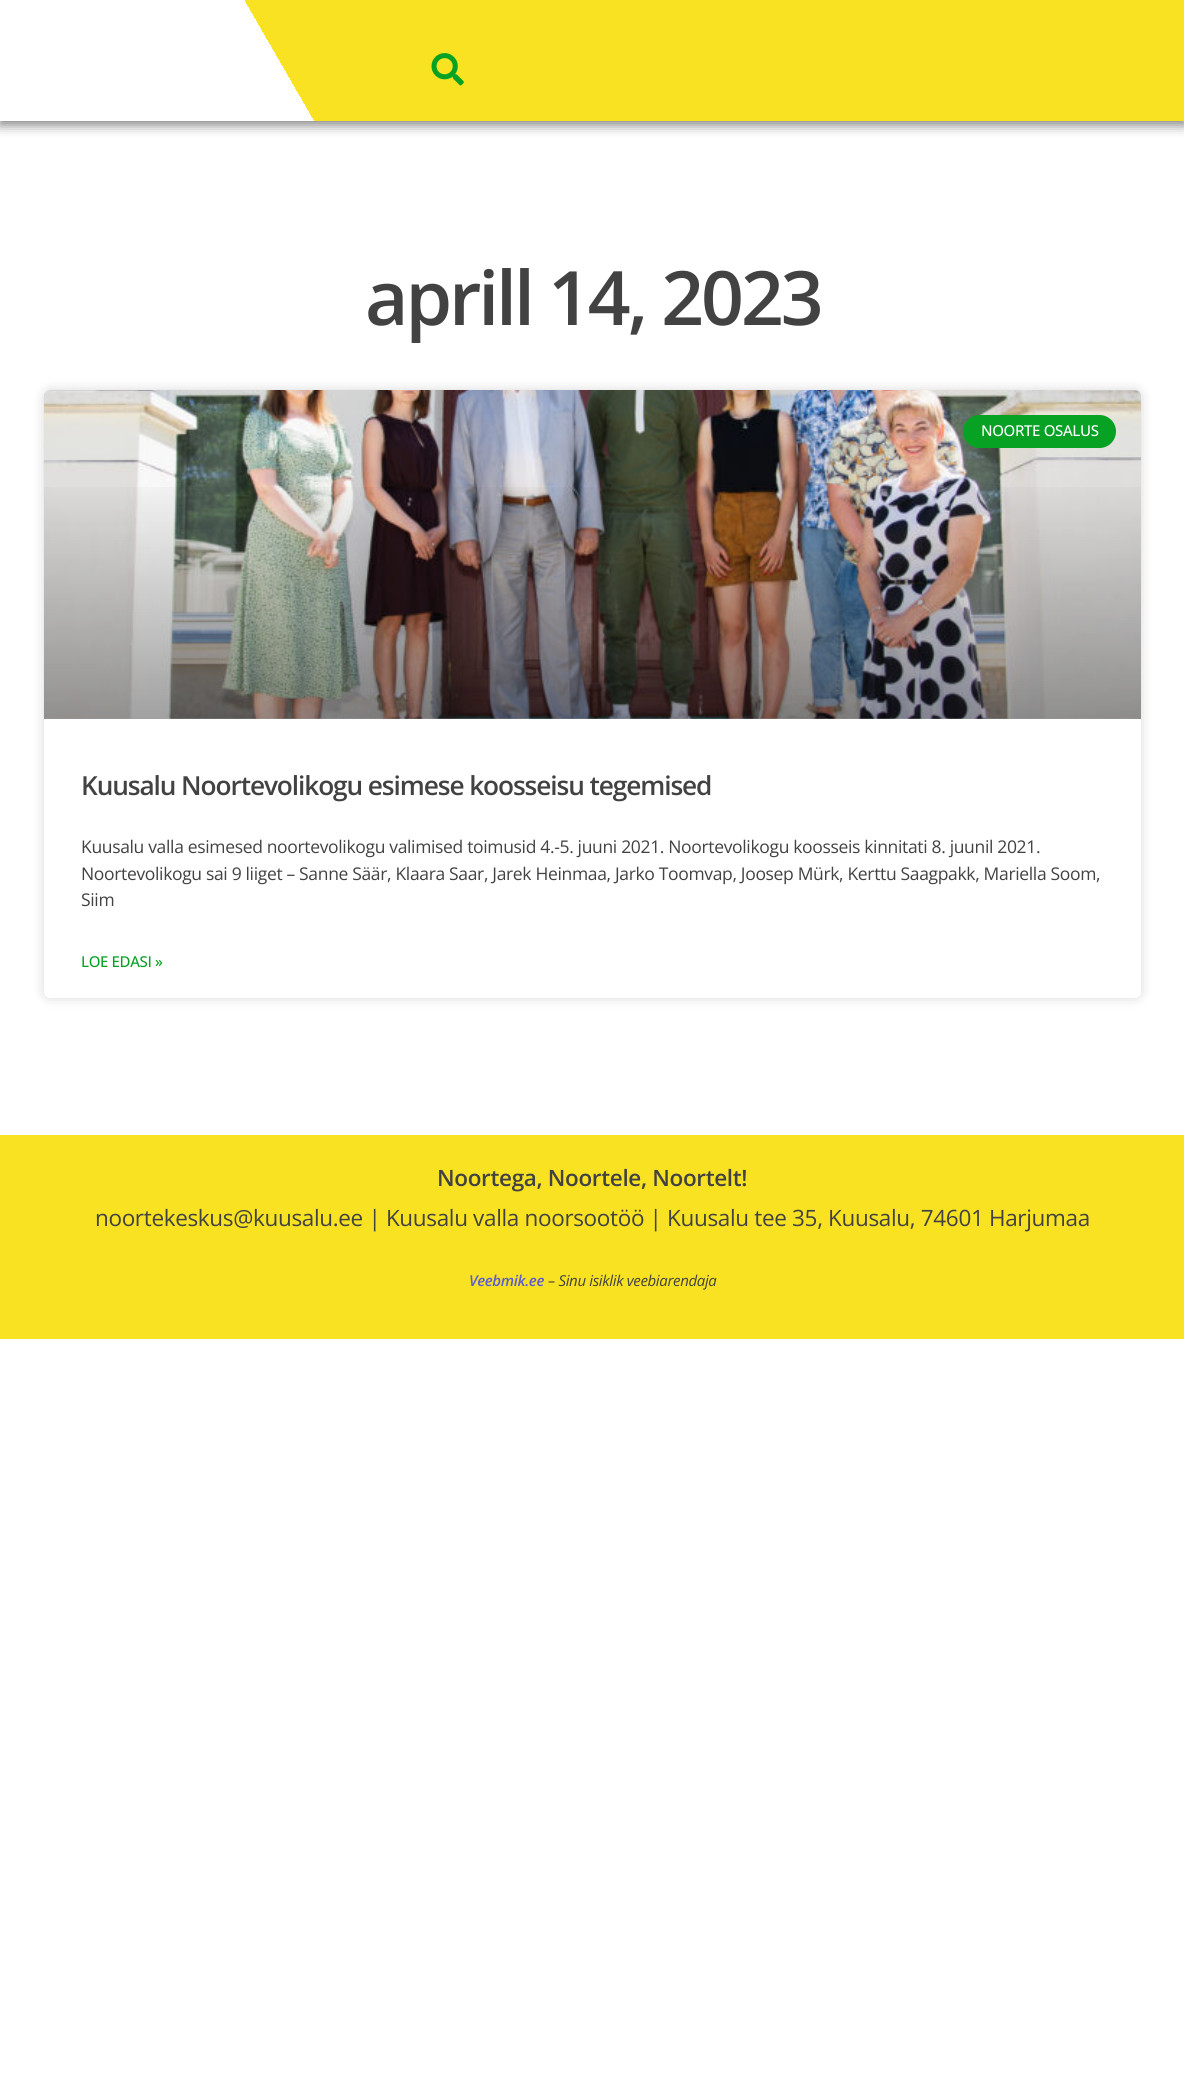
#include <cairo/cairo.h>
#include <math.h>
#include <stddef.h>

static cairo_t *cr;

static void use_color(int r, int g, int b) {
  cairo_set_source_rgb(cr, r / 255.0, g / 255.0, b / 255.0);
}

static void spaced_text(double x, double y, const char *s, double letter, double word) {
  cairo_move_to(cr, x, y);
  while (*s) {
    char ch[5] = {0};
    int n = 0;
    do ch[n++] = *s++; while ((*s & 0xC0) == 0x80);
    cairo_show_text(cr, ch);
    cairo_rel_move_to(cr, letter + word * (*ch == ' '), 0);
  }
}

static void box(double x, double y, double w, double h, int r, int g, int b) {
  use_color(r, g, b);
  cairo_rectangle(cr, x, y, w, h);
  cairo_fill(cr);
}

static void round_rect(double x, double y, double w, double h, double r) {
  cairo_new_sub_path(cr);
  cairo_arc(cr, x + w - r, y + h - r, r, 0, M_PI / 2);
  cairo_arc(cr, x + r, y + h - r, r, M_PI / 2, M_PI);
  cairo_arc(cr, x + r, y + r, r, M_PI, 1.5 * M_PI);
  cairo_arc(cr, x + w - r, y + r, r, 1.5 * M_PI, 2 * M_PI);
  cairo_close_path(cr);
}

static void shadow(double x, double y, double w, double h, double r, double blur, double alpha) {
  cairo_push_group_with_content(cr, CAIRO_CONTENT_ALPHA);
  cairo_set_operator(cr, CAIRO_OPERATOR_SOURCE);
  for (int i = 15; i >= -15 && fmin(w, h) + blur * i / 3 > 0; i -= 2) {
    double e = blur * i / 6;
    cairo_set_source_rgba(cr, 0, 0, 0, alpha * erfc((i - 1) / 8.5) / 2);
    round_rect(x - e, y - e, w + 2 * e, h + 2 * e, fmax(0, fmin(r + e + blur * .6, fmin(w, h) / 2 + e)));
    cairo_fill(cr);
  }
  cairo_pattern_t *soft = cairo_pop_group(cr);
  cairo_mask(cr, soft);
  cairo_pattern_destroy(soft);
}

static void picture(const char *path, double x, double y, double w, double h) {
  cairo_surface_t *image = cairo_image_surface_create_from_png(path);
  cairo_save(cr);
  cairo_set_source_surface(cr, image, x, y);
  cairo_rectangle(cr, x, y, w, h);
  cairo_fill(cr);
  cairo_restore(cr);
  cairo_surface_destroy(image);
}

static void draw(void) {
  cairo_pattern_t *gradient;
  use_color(255, 255, 255);
  cairo_paint(cr);
  use_color(0, 0, 0);
  shadow(0, 0, 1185, 125, 0, 6, 0.5);
  gradient = cairo_pattern_create_linear(1064, -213, 121, 331);
  cairo_pattern_add_color_stop_rgba(gradient, 0.75, 0.973, 0.886, 0.129, 1);
  cairo_pattern_add_color_stop_rgba(gradient, 0.75, 1, 1, 1, 1);
  cairo_set_source(cr, gradient);
  cairo_pattern_destroy(gradient);
  cairo_rectangle(cr, 0, 0, 1184, 121);
  cairo_fill(cr);
  picture("img_01.png", 431, 53, 33, 33);
  use_color(0, 0, 0);
  shadow(44, 390, 1097, 608, 6, 6, 0.15);
  use_color(255, 255, 255);
  round_rect(44, 390, 1097, 608, 6);
  cairo_fill(cr);
  picture("img_02.png", 43, 390, 1099, 329);
  gradient = cairo_pattern_create_linear(593, 719, 593, 390);
  cairo_pattern_add_color_stop_rgba(gradient, 0, 0, 0, 0, 0.35);
  cairo_pattern_add_color_stop_rgba(gradient, 0.75, 0, 0, 0, 0);
  cairo_set_source(cr, gradient);
  cairo_pattern_destroy(gradient);
  cairo_rectangle(cr, 44, 487, 1097, 232);
  cairo_fill(cr);
  use_color(7, 162, 35);
  round_rect(963, 415, 153, 33, 16.5);
  cairo_fill(cr);
  box(0, 1135, 1184, 204, 248, 226, 33);
  cairo_select_font_face(cr, "Open Sans SemiBold", CAIRO_FONT_SLANT_NORMAL, CAIRO_FONT_WEIGHT_NORMAL);
  cairo_set_font_size(cr, 75);
  use_color(66, 66, 66);
  spaced_text(365, 325, "aprill 14, 2023", -3.1, 0);
  cairo_select_font_face(cr, "Open Sans Medium", CAIRO_FONT_SLANT_NORMAL, CAIRO_FONT_WEIGHT_NORMAL);
  cairo_set_font_size(cr, 15);
  use_color(255, 255, 255);
  spaced_text(981, 436, "NOORTE OSALUS", -0.34, 0);
  cairo_select_font_face(cr, "Open Sans SemiBold", CAIRO_FONT_SLANT_NORMAL, CAIRO_FONT_WEIGHT_NORMAL);
  cairo_set_font_size(cr, 26.25);
  use_color(66, 66, 66);
  spaced_text(81, 795, "Kuusalu Noortevolikogu esimese koosseisu tegemised", -1.1, 0);
  cairo_select_font_face(cr, "Open Sans", CAIRO_FONT_SLANT_NORMAL, CAIRO_FONT_WEIGHT_NORMAL);
  cairo_set_font_size(cr, 17.5);
  spaced_text(81, 853, "Kuusalu valla esimesed noortevolikogu valimised toimusid 4.-5. juuni 2021. Noortevolikogu koosseis kinnitati 8. juunil 2021.", -0.34, 0);
  spaced_text(81, 880, "Noortevolikogu sai 9 liiget – Sanne Säär, Klaara Saar, Jarek Heinmaa, Jarko Toomvap, Joosep Mürk, Kerttu Saagpakk, Mariella Soom,", -0.34, 0);
  spaced_text(81, 906, "Siim", -0.34, 0);
  cairo_select_font_face(cr, "Open Sans Medium", CAIRO_FONT_SLANT_NORMAL, CAIRO_FONT_WEIGHT_NORMAL);
  cairo_set_font_size(cr, 15);
  use_color(7, 162, 35);
  spaced_text(81, 967, "LOE EDASI »", -0.34, 0);
  cairo_select_font_face(cr, "Open Sans SemiBold", CAIRO_FONT_SLANT_NORMAL, CAIRO_FONT_WEIGHT_NORMAL);
  cairo_set_font_size(cr, 22.5);
  use_color(66, 66, 66);
  spaced_text(437, 1186, "Noortega, Noortele, Noortelt!", -0.34, 0);
  cairo_select_font_face(cr, "Open Sans", CAIRO_FONT_SLANT_NORMAL, CAIRO_FONT_WEIGHT_NORMAL);
  spaced_text(95, 1226, "noortekeskus@kuusalu.ee | Kuusalu valla noorsootöö | Kuusalu tee 35, Kuusalu, 74601 Harjumaa", -0.34, 0);
  cairo_select_font_face(cr, "Open Sans SemiBold", CAIRO_FONT_SLANT_ITALIC, CAIRO_FONT_WEIGHT_NORMAL);
  cairo_set_font_size(cr, 15);
  use_color(92, 92, 212);
  spaced_text(469, 1286, "Veebmik.ee", -0.34, 0);
  cairo_select_font_face(cr, "Open Sans", CAIRO_FONT_SLANT_ITALIC, CAIRO_FONT_WEIGHT_NORMAL);
  use_color(66, 66, 66);
  spaced_text(548, 1286, "– Sinu isiklik veebiarendaja", -0.34, 0);
}

int main(void) {
  cairo_surface_t *surface = cairo_image_surface_create(CAIRO_FORMAT_RGB24, 1184, 2093);
  cr = cairo_create(surface);
  cairo_font_options_t *options = cairo_font_options_create();
  cairo_font_options_set_hint_metrics(options, CAIRO_HINT_METRICS_OFF);
  cairo_font_options_set_hint_style(options, CAIRO_HINT_STYLE_NONE);
  cairo_set_font_options(cr, options);
  cairo_set_miter_limit(cr, 4);
  draw();
  cairo_surface_write_to_png(surface, "out.png");
  cairo_font_options_destroy(options);
  cairo_destroy(cr);
  cairo_surface_destroy(surface);
  return 0;
}
